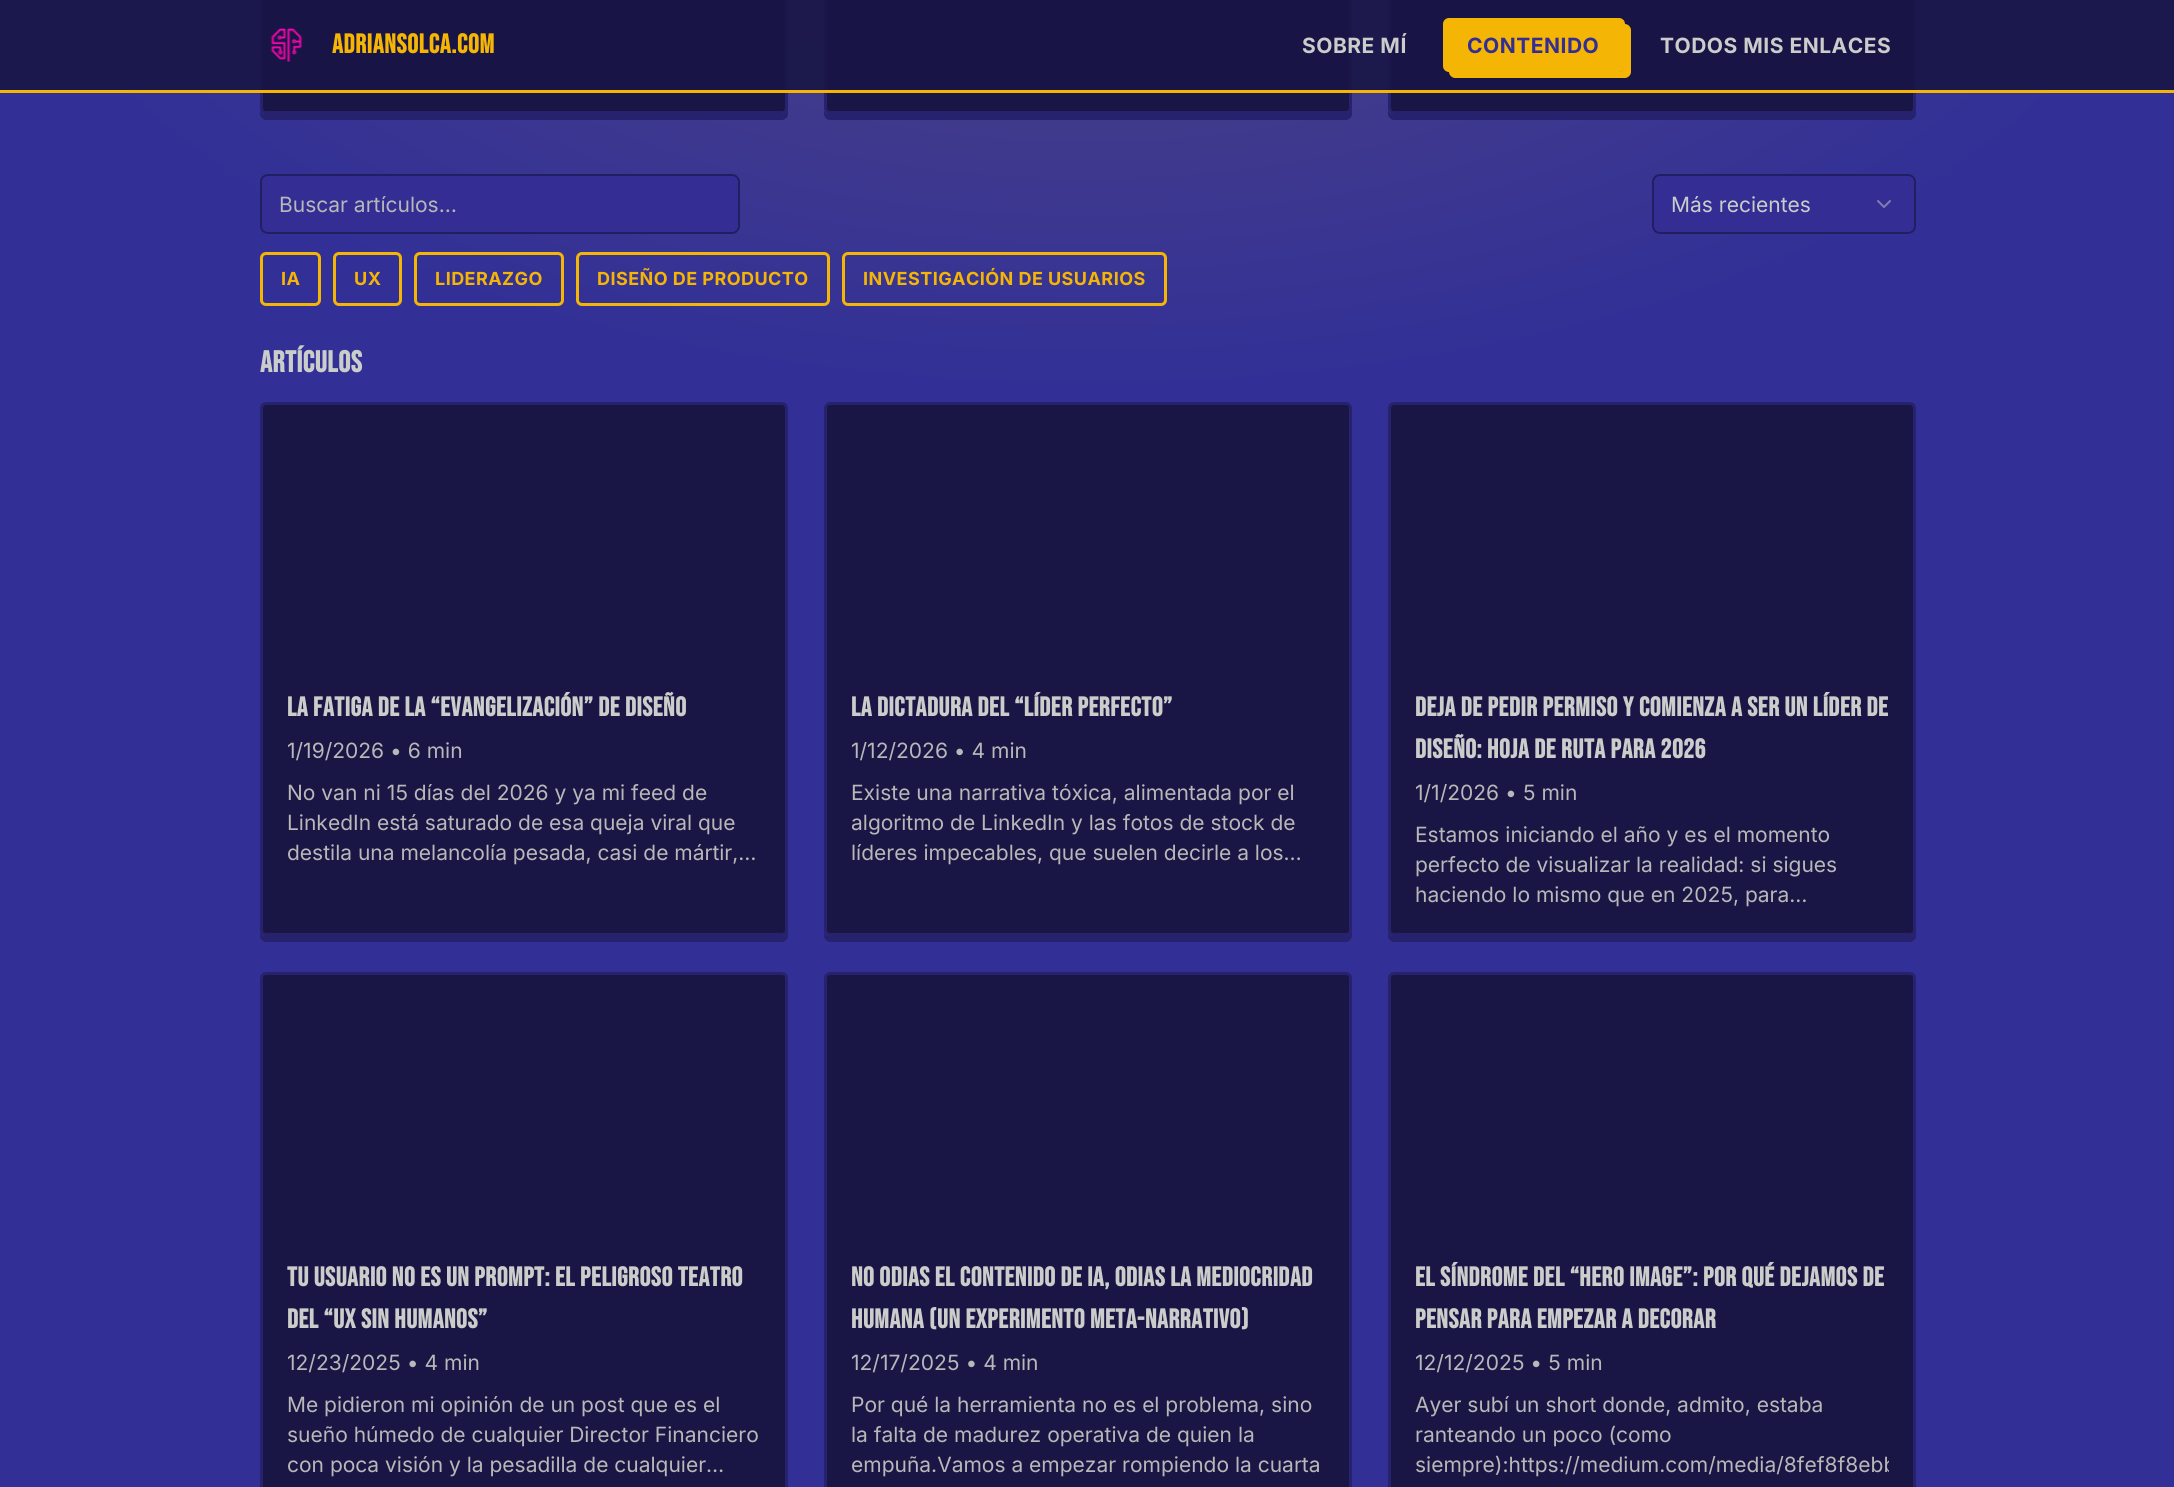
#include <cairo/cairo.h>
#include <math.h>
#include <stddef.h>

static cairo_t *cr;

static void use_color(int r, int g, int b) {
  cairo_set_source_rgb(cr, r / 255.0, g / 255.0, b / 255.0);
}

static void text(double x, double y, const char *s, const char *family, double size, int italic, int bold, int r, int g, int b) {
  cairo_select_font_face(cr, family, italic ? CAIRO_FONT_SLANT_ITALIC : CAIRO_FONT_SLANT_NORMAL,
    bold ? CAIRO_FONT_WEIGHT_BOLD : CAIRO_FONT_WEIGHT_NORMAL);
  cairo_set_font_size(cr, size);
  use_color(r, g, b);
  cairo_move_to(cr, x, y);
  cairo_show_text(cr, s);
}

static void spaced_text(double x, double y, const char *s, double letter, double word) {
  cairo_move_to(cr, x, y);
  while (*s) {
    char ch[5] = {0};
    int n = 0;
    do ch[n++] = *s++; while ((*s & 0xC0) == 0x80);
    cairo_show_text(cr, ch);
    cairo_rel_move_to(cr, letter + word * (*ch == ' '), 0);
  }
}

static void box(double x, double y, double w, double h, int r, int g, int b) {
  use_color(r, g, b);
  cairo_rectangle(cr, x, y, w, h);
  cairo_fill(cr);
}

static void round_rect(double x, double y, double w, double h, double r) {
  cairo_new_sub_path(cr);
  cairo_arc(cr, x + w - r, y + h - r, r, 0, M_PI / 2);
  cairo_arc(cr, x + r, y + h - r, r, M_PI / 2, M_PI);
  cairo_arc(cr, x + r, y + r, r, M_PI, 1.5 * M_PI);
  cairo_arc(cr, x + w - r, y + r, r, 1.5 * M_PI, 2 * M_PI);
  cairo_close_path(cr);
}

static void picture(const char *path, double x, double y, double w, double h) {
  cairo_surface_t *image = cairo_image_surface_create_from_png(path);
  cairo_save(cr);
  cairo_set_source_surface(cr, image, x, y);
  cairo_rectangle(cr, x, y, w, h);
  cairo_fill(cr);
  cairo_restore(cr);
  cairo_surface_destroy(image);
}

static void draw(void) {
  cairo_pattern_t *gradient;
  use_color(255, 255, 255);
  cairo_paint(cr);
  gradient = cairo_pattern_create_radial(0, 0, 0, 0, 0, 1);
  cairo_pattern_set_matrix(gradient, &(cairo_matrix_t){1.0 / 1800, 0, 0, 1.0 / 900, -1.0 * 1088 / 1800, -1.0 * -149 / 900});
  cairo_pattern_add_color_stop_rgba(gradient, 0, 0.31, 0.267, 0.506, 1);
  cairo_pattern_add_color_stop_rgba(gradient, 0.6, 0.196, 0.188, 0.592, 1);
  cairo_set_source(cr, gradient);
  cairo_pattern_destroy(gradient);
  cairo_rectangle(cr, 0, 0, 2174, 1487);
  cairo_fill(cr);
  use_color(39, 34, 109);
  cairo_new_path(cr);
  cairo_move_to(cr, 260, 110);
  cairo_line_to(cr, 260, 114);
  cairo_curve_to(cr, 260, 117, 263, 120, 266, 120);
  cairo_line_to(cr, 782, 120);
  cairo_curve_to(cr, 785, 120, 788, 117, 788, 114);
  cairo_line_to(cr, 788, -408);
  cairo_line_to(cr, 788, -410);
  cairo_line_to(cr, 788, 108);
  cairo_curve_to(cr, 788, 111, 785, 114, 782, 114);
  cairo_line_to(cr, 266, 114);
  cairo_curve_to(cr, 263, 114, 261, 113, 260, 110);
  cairo_close_path(cr);
  cairo_fill(cr);
  use_color(25, 22, 70);
  round_rect(261.5, -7.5, 525, 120, 4.5);
  cairo_fill_preserve(cr);
  use_color(39, 34, 109);
  cairo_set_line_width(cr, 3);
  cairo_stroke(cr);
  cairo_new_path(cr);
  cairo_move_to(cr, 824, 110);
  cairo_line_to(cr, 824, 114);
  cairo_curve_to(cr, 824, 117, 827, 120, 830, 120);
  cairo_line_to(cr, 1346, 120);
  cairo_curve_to(cr, 1349, 120, 1352, 117, 1352, 114);
  cairo_line_to(cr, 1352, -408);
  cairo_line_to(cr, 1352, -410);
  cairo_line_to(cr, 1352, 108);
  cairo_curve_to(cr, 1352, 111, 1349, 114, 1346, 114);
  cairo_line_to(cr, 830, 114);
  cairo_curve_to(cr, 827, 114, 825, 113, 824, 110);
  cairo_close_path(cr);
  cairo_fill(cr);
  use_color(25, 22, 70);
  round_rect(825.5, -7.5, 525, 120, 4.5);
  cairo_fill_preserve(cr);
  use_color(39, 34, 109);
  cairo_stroke(cr);
  cairo_new_path(cr);
  cairo_move_to(cr, 1388, 110);
  cairo_line_to(cr, 1388, 114);
  cairo_curve_to(cr, 1388, 117, 1391, 120, 1394, 120);
  cairo_line_to(cr, 1910, 120);
  cairo_curve_to(cr, 1913, 120, 1916, 117, 1916, 114);
  cairo_line_to(cr, 1916, -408);
  cairo_line_to(cr, 1916, -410);
  cairo_line_to(cr, 1916, 108);
  cairo_curve_to(cr, 1916, 111, 1913, 114, 1910, 114);
  cairo_line_to(cr, 1394, 114);
  cairo_curve_to(cr, 1391, 114, 1389, 113, 1388, 110);
  cairo_close_path(cr);
  cairo_fill(cr);
  use_color(25, 22, 70);
  round_rect(1389.5, -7.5, 525, 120, 4.5);
  cairo_fill_preserve(cr);
  use_color(39, 34, 109);
  cairo_stroke(cr);
  cairo_set_source_rgba(cr, 0.098, 0.086, 0.275, 0.9);
  cairo_rectangle(cr, 0, 0, 2174, 90);
  cairo_fill(cr);
  box(0, 90, 2174, 3, 245, 181, 5);
  picture("img_01.png", 270, 28, 33, 34);
  cairo_new_path(cr);
  cairo_move_to(cr, 1449, 72);
  cairo_curve_to(cr, 1449, 75, 1452, 78, 1455, 78);
  cairo_line_to(cr, 1625, 78);
  cairo_curve_to(cr, 1628, 78, 1631, 75, 1631, 72);
  cairo_line_to(cr, 1631, 30);
  cairo_curve_to(cr, 1631, 27, 1628, 24, 1625, 24);
  cairo_line_to(cr, 1624, 24);
  cairo_line_to(cr, 1624, 66);
  cairo_curve_to(cr, 1624, 69, 1622, 72, 1618, 72);
  cairo_close_path(cr);
  cairo_fill(cr);
  round_rect(1443, 18, 182, 54, 6);
  cairo_fill(cr);
  use_color(52, 46, 148);
  round_rect(261, 175, 478, 58, 7);
  cairo_fill_preserve(cr);
  use_color(34, 30, 98);
  cairo_set_line_width(cr, 2);
  cairo_stroke(cr);
  use_color(52, 46, 148);
  round_rect(1653, 175, 262, 58, 7);
  cairo_fill_preserve(cr);
  use_color(34, 30, 98);
  cairo_stroke(cr);
  cairo_new_path(cr);
  cairo_move_to(cr, 1878, 201);
  cairo_line_to(cr, 1884, 207);
  cairo_line_to(cr, 1890, 201);
  use_color(128, 126, 176);
  cairo_set_line_cap(cr, CAIRO_LINE_CAP_ROUND);
  cairo_set_line_join(cr, CAIRO_LINE_JOIN_ROUND);
  cairo_stroke(cr);
  round_rect(261.5, 253.5, 58, 51, 4.5);
  use_color(245, 181, 5);
  cairo_set_line_width(cr, 3);
  cairo_set_line_cap(cr, CAIRO_LINE_CAP_BUTT);
  cairo_set_line_join(cr, CAIRO_LINE_JOIN_MITER);
  cairo_stroke(cr);
  round_rect(334.5, 253.5, 66, 51, 4.5);
  cairo_stroke(cr);
  round_rect(415.5, 253.5, 147, 51, 4.5);
  cairo_stroke(cr);
  round_rect(577.5, 253.5, 251, 51, 4.5);
  cairo_stroke(cr);
  round_rect(843.5, 253.5, 322, 51, 4.5);
  cairo_stroke(cr);
  use_color(39, 34, 109);
  cairo_new_path(cr);
  cairo_move_to(cr, 260, 932);
  cairo_line_to(cr, 260, 936);
  cairo_curve_to(cr, 260, 939, 263, 942, 266, 942);
  cairo_line_to(cr, 782, 942);
  cairo_curve_to(cr, 785, 942, 788, 939, 788, 936);
  cairo_line_to(cr, 788, 414);
  cairo_line_to(cr, 788, 412);
  cairo_line_to(cr, 788, 930);
  cairo_curve_to(cr, 788, 933, 785, 936, 782, 936);
  cairo_line_to(cr, 266, 936);
  cairo_curve_to(cr, 263, 936, 261, 935, 260, 932);
  cairo_close_path(cr);
  cairo_fill(cr);
  use_color(25, 22, 70);
  round_rect(261.5, 403.5, 525, 531, 4.5);
  cairo_fill_preserve(cr);
  use_color(39, 34, 109);
  cairo_stroke(cr);
  cairo_new_path(cr);
  cairo_move_to(cr, 824, 932);
  cairo_line_to(cr, 824, 936);
  cairo_curve_to(cr, 824, 939, 827, 942, 830, 942);
  cairo_line_to(cr, 1346, 942);
  cairo_curve_to(cr, 1349, 942, 1352, 939, 1352, 936);
  cairo_line_to(cr, 1352, 414);
  cairo_line_to(cr, 1352, 412);
  cairo_line_to(cr, 1352, 930);
  cairo_curve_to(cr, 1352, 933, 1349, 936, 1346, 936);
  cairo_line_to(cr, 830, 936);
  cairo_curve_to(cr, 827, 936, 825, 935, 824, 932);
  cairo_close_path(cr);
  cairo_fill(cr);
  use_color(25, 22, 70);
  round_rect(825.5, 403.5, 525, 531, 4.5);
  cairo_fill_preserve(cr);
  use_color(39, 34, 109);
  cairo_stroke(cr);
  cairo_new_path(cr);
  cairo_move_to(cr, 1388, 932);
  cairo_line_to(cr, 1388, 936);
  cairo_curve_to(cr, 1388, 939, 1391, 942, 1394, 942);
  cairo_line_to(cr, 1910, 942);
  cairo_curve_to(cr, 1913, 942, 1916, 939, 1916, 936);
  cairo_line_to(cr, 1916, 414);
  cairo_line_to(cr, 1916, 412);
  cairo_line_to(cr, 1916, 930);
  cairo_curve_to(cr, 1916, 933, 1913, 936, 1910, 936);
  cairo_line_to(cr, 1394, 936);
  cairo_curve_to(cr, 1391, 936, 1389, 935, 1388, 932);
  cairo_close_path(cr);
  cairo_fill(cr);
  use_color(25, 22, 70);
  round_rect(1389.5, 403.5, 525, 531, 4.5);
  cairo_fill_preserve(cr);
  use_color(39, 34, 109);
  cairo_stroke(cr);
  use_color(25, 22, 70);
  round_rect(261.5, 973.5, 525, 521, 4.5);
  cairo_fill_preserve(cr);
  use_color(39, 34, 109);
  cairo_stroke(cr);
  use_color(25, 22, 70);
  round_rect(825.5, 973.5, 525, 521, 4.5);
  cairo_fill_preserve(cr);
  use_color(39, 34, 109);
  cairo_stroke(cr);
  use_color(25, 22, 70);
  round_rect(1389.5, 973.5, 525, 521, 4.5);
  cairo_fill_preserve(cr);
  use_color(39, 34, 109);
  cairo_stroke(cr);
  cairo_select_font_face(cr, "Bebas Neue", CAIRO_FONT_SLANT_NORMAL, CAIRO_FONT_WEIGHT_BOLD);
  cairo_set_font_size(cr, 27);
  use_color(245, 181, 5);
  spaced_text(332, 53, "ADRIANSOLCA.COM", 0.7, 0);
  cairo_select_font_face(cr, "Inter", CAIRO_FONT_SLANT_NORMAL, CAIRO_FONT_WEIGHT_BOLD);
  cairo_set_font_size(cr, 21);
  use_color(203, 205, 203);
  spaced_text(1302, 53, "SOBRE MÍ", 0.5, 0);
  use_color(52, 46, 148);
  spaced_text(1467, 53, "CONTENIDO", 0.5, 0);
  use_color(203, 205, 203);
  spaced_text(1660, 53, "TODOS MIS ENLACES", 0.5, 0);
  text(279, 212, "Buscar artículos…", "Inter", 21, 0, 0, 183, 184, 183);
  text(1671, 212, "Más recientes", "Inter", 21, 0, 0, 203, 205, 203);
  cairo_select_font_face(cr, "Inter", CAIRO_FONT_SLANT_NORMAL, CAIRO_FONT_WEIGHT_BOLD);
  cairo_set_font_size(cr, 18);
  use_color(245, 181, 5);
  spaced_text(281, 285, "IA", 0.45, 0);
  spaced_text(354, 285, "UX", 0.45, 0);
  spaced_text(435, 285, "LIDERAZGO", 0.45, 0);
  spaced_text(597, 285, "DISEÑO DE PRODUCTO", 0.45, 0);
  spaced_text(863, 285, "INVESTIGACIÓN DE USUARIOS", 0.45, 0);
  cairo_select_font_face(cr, "Bebas Neue", CAIRO_FONT_SLANT_NORMAL, CAIRO_FONT_WEIGHT_BOLD);
  cairo_set_font_size(cr, 30);
  use_color(203, 205, 203);
  spaced_text(260, 372, "ARTÍCULOS", 0.5, 0);
  cairo_set_font_size(cr, 27);
  spaced_text(287, 716, "LA FATIGA DE LA “EVANGELIZACIÓN” DE DISEÑO", 0.55, 0);
  text(287, 758, "1/19/2026 • 6 min", "Inter", 21, 0, 0, 183, 184, 183);
  text(287, 800, "No van ni 15 días del 2026 y ya mi feed de", "Inter", 21, 0, 0, 183, 184, 183);
  text(287, 830, "LinkedIn está saturado de esa queja viral que", "Inter", 21, 0, 0, 183, 184, 183);
  text(287, 860, "destila una melancolía pesada, casi de mártir,…", "Inter", 21, 0, 0, 183, 184, 183);
  cairo_select_font_face(cr, "Bebas Neue", CAIRO_FONT_SLANT_NORMAL, CAIRO_FONT_WEIGHT_BOLD);
  cairo_set_font_size(cr, 27);
  use_color(203, 205, 203);
  spaced_text(851, 716, "LA DICTADURA DEL “LÍDER PERFECTO”", 0.55, 0);
  text(851, 758, "1/12/2026 • 4 min", "Inter", 21, 0, 0, 183, 184, 183);
  text(851, 800, "Existe una narrativa tóxica, alimentada por el", "Inter", 21, 0, 0, 183, 184, 183);
  text(851, 830, "algoritmo de LinkedIn y las fotos de stock de", "Inter", 21, 0, 0, 183, 184, 183);
  text(851, 860, "líderes impecables, que suelen decirle a los…", "Inter", 21, 0, 0, 183, 184, 183);
  cairo_select_font_face(cr, "Bebas Neue", CAIRO_FONT_SLANT_NORMAL, CAIRO_FONT_WEIGHT_BOLD);
  cairo_set_font_size(cr, 27);
  use_color(203, 205, 203);
  spaced_text(1415, 716, "DEJA DE PEDIR PERMISO Y COMIENZA A SER UN LÍDER DE", 0.55, 0);
  spaced_text(1415, 758, "DISEÑO: HOJA DE RUTA PARA 2026", 0.55, 0);
  text(1415, 800, "1/1/2026 • 5 min", "Inter", 21, 0, 0, 183, 184, 183);
  text(1415, 842, "Estamos iniciando el año y es el momento", "Inter", 21, 0, 0, 183, 184, 183);
  text(1415, 872, "perfecto de visualizar la realidad: si sigues", "Inter", 21, 0, 0, 183, 184, 183);
  text(1415, 902, "haciendo lo mismo que en 2025, para…", "Inter", 21, 0, 0, 183, 184, 183);
  cairo_select_font_face(cr, "Bebas Neue", CAIRO_FONT_SLANT_NORMAL, CAIRO_FONT_WEIGHT_BOLD);
  cairo_set_font_size(cr, 27);
  use_color(203, 205, 203);
  spaced_text(287, 1286, "TU USUARIO NO ES UN PROMPT: EL PELIGROSO TEATRO", 0.55, 0);
  spaced_text(287, 1328, "DEL “UX SIN HUMANOS”", 0.55, 0);
  text(287, 1370, "12/23/2025 • 4 min", "Inter", 21, 0, 0, 183, 184, 183);
  text(287, 1412, "Me pidieron mi opinión de un post que es el", "Inter", 21, 0, 0, 183, 184, 183);
  text(287, 1442, "sueño húmedo de cualquier Director Financiero", "Inter", 21, 0, 0, 183, 184, 183);
  text(287, 1472, "con poca visión y la pesadilla de cualquier…", "Inter", 21, 0, 0, 183, 184, 183);
  cairo_select_font_face(cr, "Bebas Neue", CAIRO_FONT_SLANT_NORMAL, CAIRO_FONT_WEIGHT_BOLD);
  cairo_set_font_size(cr, 27);
  use_color(203, 205, 203);
  spaced_text(851, 1286, "NO ODIAS EL CONTENIDO DE IA, ODIAS LA MEDIOCRIDAD", 0.55, 0);
  spaced_text(851, 1328, "HUMANA (UN EXPERIMENTO META-NARRATIVO)", 0.55, 0);
  text(851, 1370, "12/17/2025 • 4 min", "Inter", 21, 0, 0, 183, 184, 183);
  text(851, 1412, "Por qué la herramienta no es el problema, sino", "Inter", 21, 0, 0, 183, 184, 183);
  text(851, 1442, "la falta de madurez operativa de quien la", "Inter", 21, 0, 0, 183, 184, 183);
  text(851, 1472, "empuña.Vamos a empezar rompiendo la cuarta", "Inter", 21, 0, 0, 183, 184, 183);
  cairo_select_font_face(cr, "Bebas Neue", CAIRO_FONT_SLANT_NORMAL, CAIRO_FONT_WEIGHT_BOLD);
  cairo_set_font_size(cr, 27);
  use_color(203, 205, 203);
  spaced_text(1415, 1286, "EL SÍNDROME DEL “HERO IMAGE”: POR QUÉ DEJAMOS DE", 0.55, 0);
  spaced_text(1415, 1328, "PENSAR PARA EMPEZAR A DECORAR", 0.55, 0);
  text(1415, 1370, "12/12/2025 • 5 min", "Inter", 21, 0, 0, 183, 184, 183);
  text(1415, 1412, "Ayer subí un short donde, admito, estaba", "Inter", 21, 0, 0, 183, 184, 183);
  text(1415, 1442, "ranteando un poco (como", "Inter", 21, 0, 0, 183, 184, 183);
  cairo_save(cr);
  cairo_rectangle(cr, 1415, 1389, 474, 90);
  cairo_clip(cr);
  text(1415, 1472, "siempre):https://medium.com/media/8fef8f8ebb", "Inter", 21, 0, 0, 183, 184, 183);
  cairo_restore(cr);
}

int main(void) {
  cairo_surface_t *surface = cairo_image_surface_create(CAIRO_FORMAT_RGB24, 2174, 1487);
  cr = cairo_create(surface);
  cairo_font_options_t *options = cairo_font_options_create();
  cairo_font_options_set_hint_metrics(options, CAIRO_HINT_METRICS_OFF);
  cairo_font_options_set_hint_style(options, CAIRO_HINT_STYLE_NONE);
  cairo_set_font_options(cr, options);
  cairo_set_miter_limit(cr, 4);
  draw();
  cairo_surface_write_to_png(surface, "out.png");
  cairo_font_options_destroy(options);
  cairo_destroy(cr);
  cairo_surface_destroy(surface);
  return 0;
}
